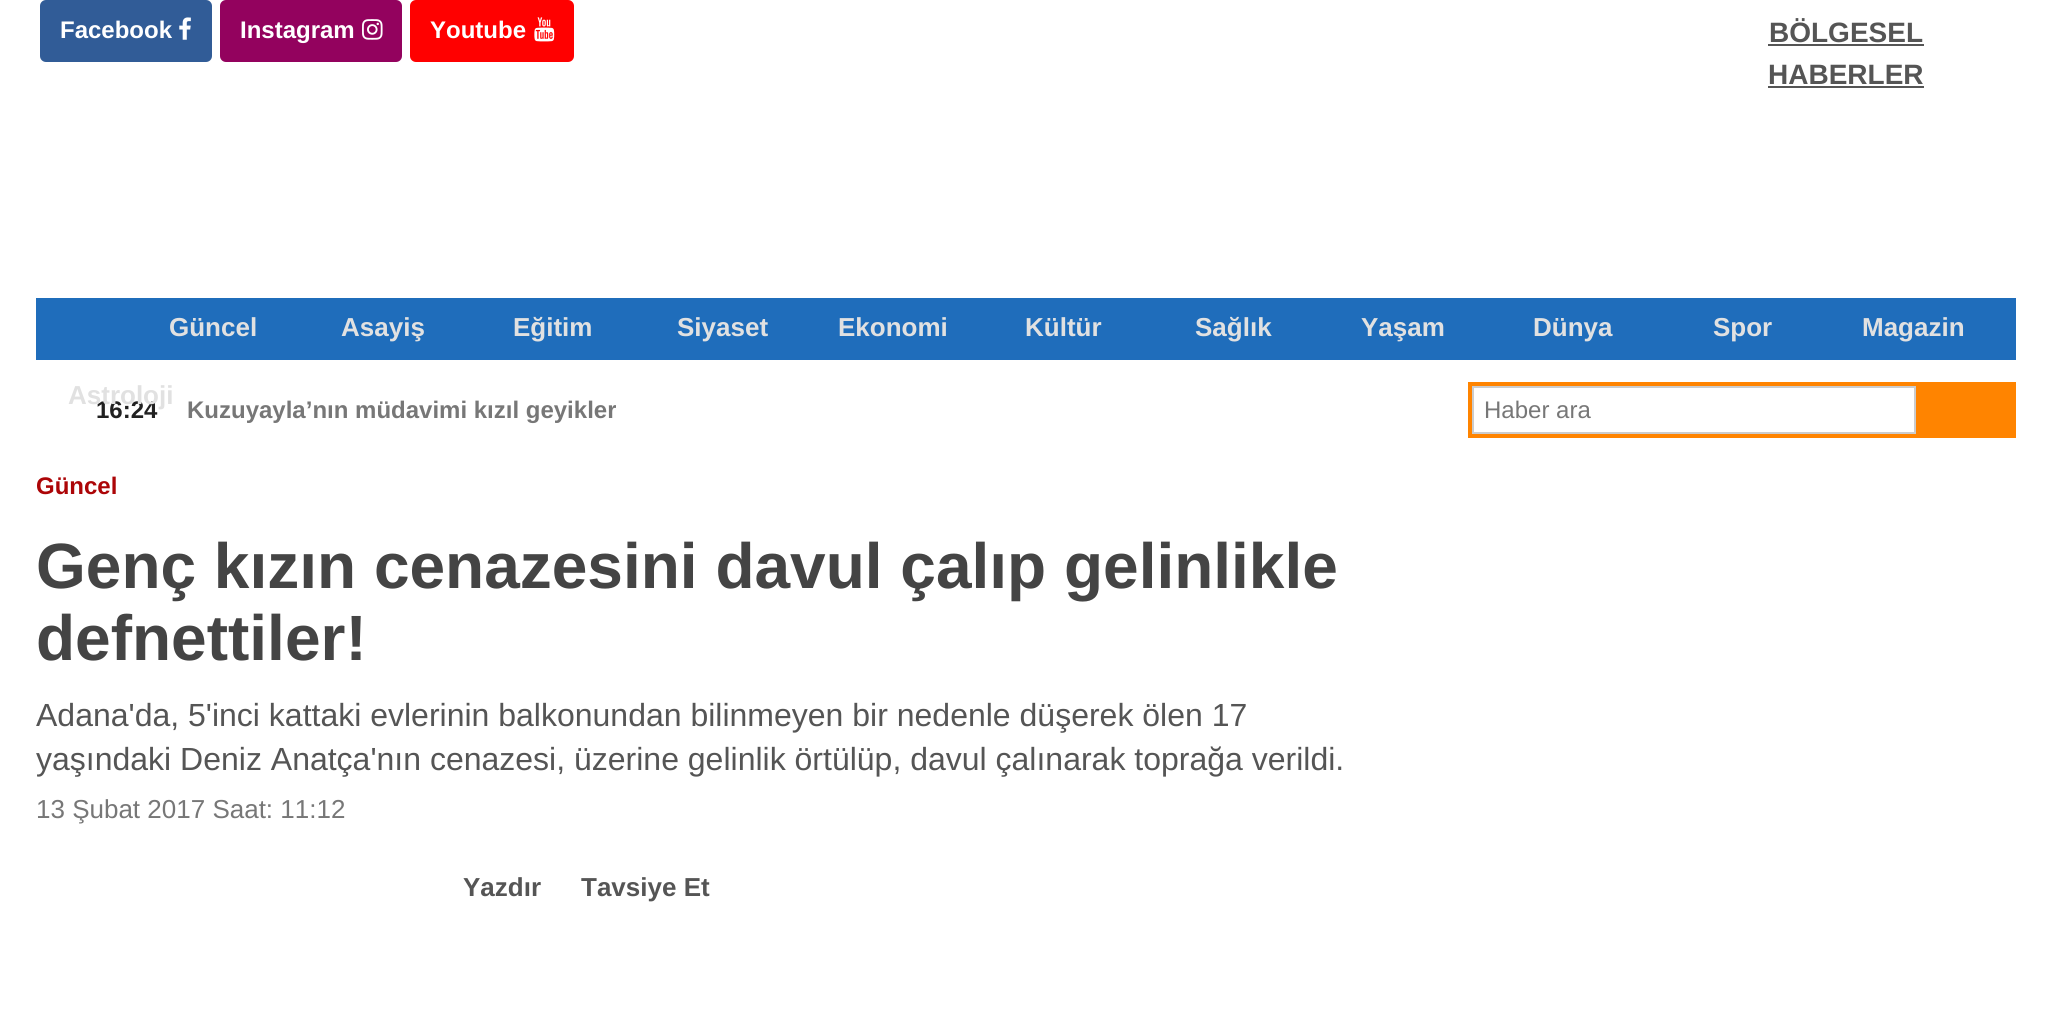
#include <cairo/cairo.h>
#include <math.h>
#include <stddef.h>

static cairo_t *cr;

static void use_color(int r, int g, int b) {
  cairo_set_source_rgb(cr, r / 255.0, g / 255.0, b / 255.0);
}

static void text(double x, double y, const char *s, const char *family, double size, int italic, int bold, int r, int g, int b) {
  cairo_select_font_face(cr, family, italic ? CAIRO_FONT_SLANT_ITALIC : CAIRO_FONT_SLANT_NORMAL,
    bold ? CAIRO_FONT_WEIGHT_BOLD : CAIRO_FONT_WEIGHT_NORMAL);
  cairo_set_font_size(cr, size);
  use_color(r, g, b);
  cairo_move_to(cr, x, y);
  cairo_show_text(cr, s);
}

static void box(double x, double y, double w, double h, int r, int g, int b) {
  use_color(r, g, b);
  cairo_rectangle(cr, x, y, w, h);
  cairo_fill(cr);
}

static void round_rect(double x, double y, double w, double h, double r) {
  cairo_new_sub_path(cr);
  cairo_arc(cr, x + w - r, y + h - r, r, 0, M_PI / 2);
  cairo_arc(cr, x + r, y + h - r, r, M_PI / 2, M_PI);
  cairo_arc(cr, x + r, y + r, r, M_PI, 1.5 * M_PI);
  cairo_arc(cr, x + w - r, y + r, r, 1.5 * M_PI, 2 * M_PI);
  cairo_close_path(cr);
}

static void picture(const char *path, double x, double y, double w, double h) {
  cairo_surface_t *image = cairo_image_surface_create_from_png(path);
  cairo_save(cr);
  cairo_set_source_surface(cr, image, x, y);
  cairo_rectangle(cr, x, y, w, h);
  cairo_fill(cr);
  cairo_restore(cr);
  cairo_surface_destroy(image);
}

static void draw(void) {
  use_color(255, 255, 255);
  cairo_paint(cr);
  use_color(49, 92, 151);
  round_rect(40, 0, 172, 62, 6);
  cairo_fill(cr);
  picture("img_01.png", 179, 17, 12, 23);
  use_color(147, 2, 94);
  round_rect(220, 0, 182, 62, 6);
  cairo_fill(cr);
  picture("img_02.png", 362, 19, 21, 21);
  use_color(255, 0, 0);
  round_rect(410, 0, 164, 62, 6);
  cairo_fill(cr);
  picture("img_03.png", 534, 17, 21, 25);
  box(1768, 44, 156, 2, 85, 85, 85);
  box(1768, 86, 156, 2, 85, 85, 85);
  box(36, 298, 1980, 62, 31, 109, 187);
  box(1468, 382, 548, 56, 255, 132, 0);
  use_color(255, 255, 255);
  cairo_rectangle(cr, 1473, 387, 442, 46);
  cairo_fill_preserve(cr);
  use_color(204, 204, 204);
  cairo_stroke(cr);
  text(60, 38, "Facebook", "Liberation Sans", 24, 0, 1, 255, 255, 255);
  text(240, 38, "Instagram", "Liberation Sans", 24, 0, 1, 255, 255, 255);
  text(430, 38, "Youtube", "Liberation Sans", 24, 0, 1, 255, 255, 255);
  text(1769, 42, "BÖLGESEL", "Liberation Sans", 28, 0, 1, 85, 85, 85);
  text(1768, 84, "HABERLER", "Liberation Sans", 28, 0, 1, 85, 85, 85);
  text(169, 336, "Güncel", "Liberation Sans", 26, 0, 1, 225, 225, 225);
  text(341, 336, "Asayiş", "Liberation Sans", 26, 0, 1, 225, 225, 225);
  text(513, 336, "Eğitim", "Liberation Sans", 26, 0, 1, 225, 225, 225);
  text(677, 336, "Siyaset", "Liberation Sans", 26, 0, 1, 225, 225, 225);
  text(838, 336, "Ekonomi", "Liberation Sans", 26, 0, 1, 225, 225, 225);
  text(1025, 336, "Kültür", "Liberation Sans", 26, 0, 1, 225, 225, 225);
  text(1195, 336, "Sağlık", "Liberation Sans", 26, 0, 1, 225, 225, 225);
  text(1361, 336, "Yaşam", "Liberation Sans", 26, 0, 1, 225, 225, 225);
  text(1533, 336, "Dünya", "Liberation Sans", 26, 0, 1, 225, 225, 225);
  text(1713, 336, "Spor", "Liberation Sans", 26, 0, 1, 225, 225, 225);
  text(1862, 336, "Magazin", "Liberation Sans", 26, 0, 1, 225, 225, 225);
  text(96, 418, "16:24", "Liberation Sans", 24, 0, 1, 33, 33, 33);
  text(68, 404, "Astroloji", "Liberation Sans", 26, 0, 1, 225, 225, 225);
  text(187, 418, "Kuzuyayla’nın müdavimi kızıl geyikler", "Liberation Sans", 24, 0, 1, 119, 119, 119);
  text(1484, 418, "Haber ara", "Liberation Sans", 24, 0, 0, 119, 119, 119);
  text(36, 494, "Güncel", "Liberation Sans", 24, 0, 1, 172, 5, 7);
  text(36, 588, "Genç kızın cenazesini davul çalıp gelinlikle", "Liberation Sans", 64, 0, 1, 68, 68, 68);
  text(36, 660, "defnettiler!", "Liberation Sans", 64, 0, 1, 68, 68, 68);
  text(36, 726, "Adana'da, 5'inci kattaki evlerinin balkonundan bilinmeyen bir nedenle düşerek ölen 17", "Liberation Sans", 32, 0, 0, 85, 85, 85);
  text(36, 770, "yaşındaki Deniz Anatça'nın cenazesi, üzerine gelinlik örtülüp, davul çalınarak toprağa verildi.", "Liberation Sans", 32, 0, 0, 85, 85, 85);
  text(36, 818, "13 Şubat 2017 Saat: 11:12", "Liberation Sans", 26, 0, 0, 119, 119, 119);
  text(463, 896, "Yazdır", "Liberation Sans", 26, 0, 1, 85, 85, 85);
  text(581, 896, "Tavsiye Et", "Liberation Sans", 26, 0, 1, 85, 85, 85);
}

int main(void) {
  cairo_surface_t *surface = cairo_image_surface_create(CAIRO_FORMAT_RGB24, 2052, 1019);
  cr = cairo_create(surface);
  cairo_font_options_t *options = cairo_font_options_create();
  cairo_font_options_set_hint_metrics(options, CAIRO_HINT_METRICS_OFF);
  cairo_font_options_set_hint_style(options, CAIRO_HINT_STYLE_NONE);
  cairo_set_font_options(cr, options);
  cairo_set_miter_limit(cr, 4);
  draw();
  cairo_surface_write_to_png(surface, "out.png");
  cairo_font_options_destroy(options);
  cairo_destroy(cr);
  cairo_surface_destroy(surface);
  return 0;
}
